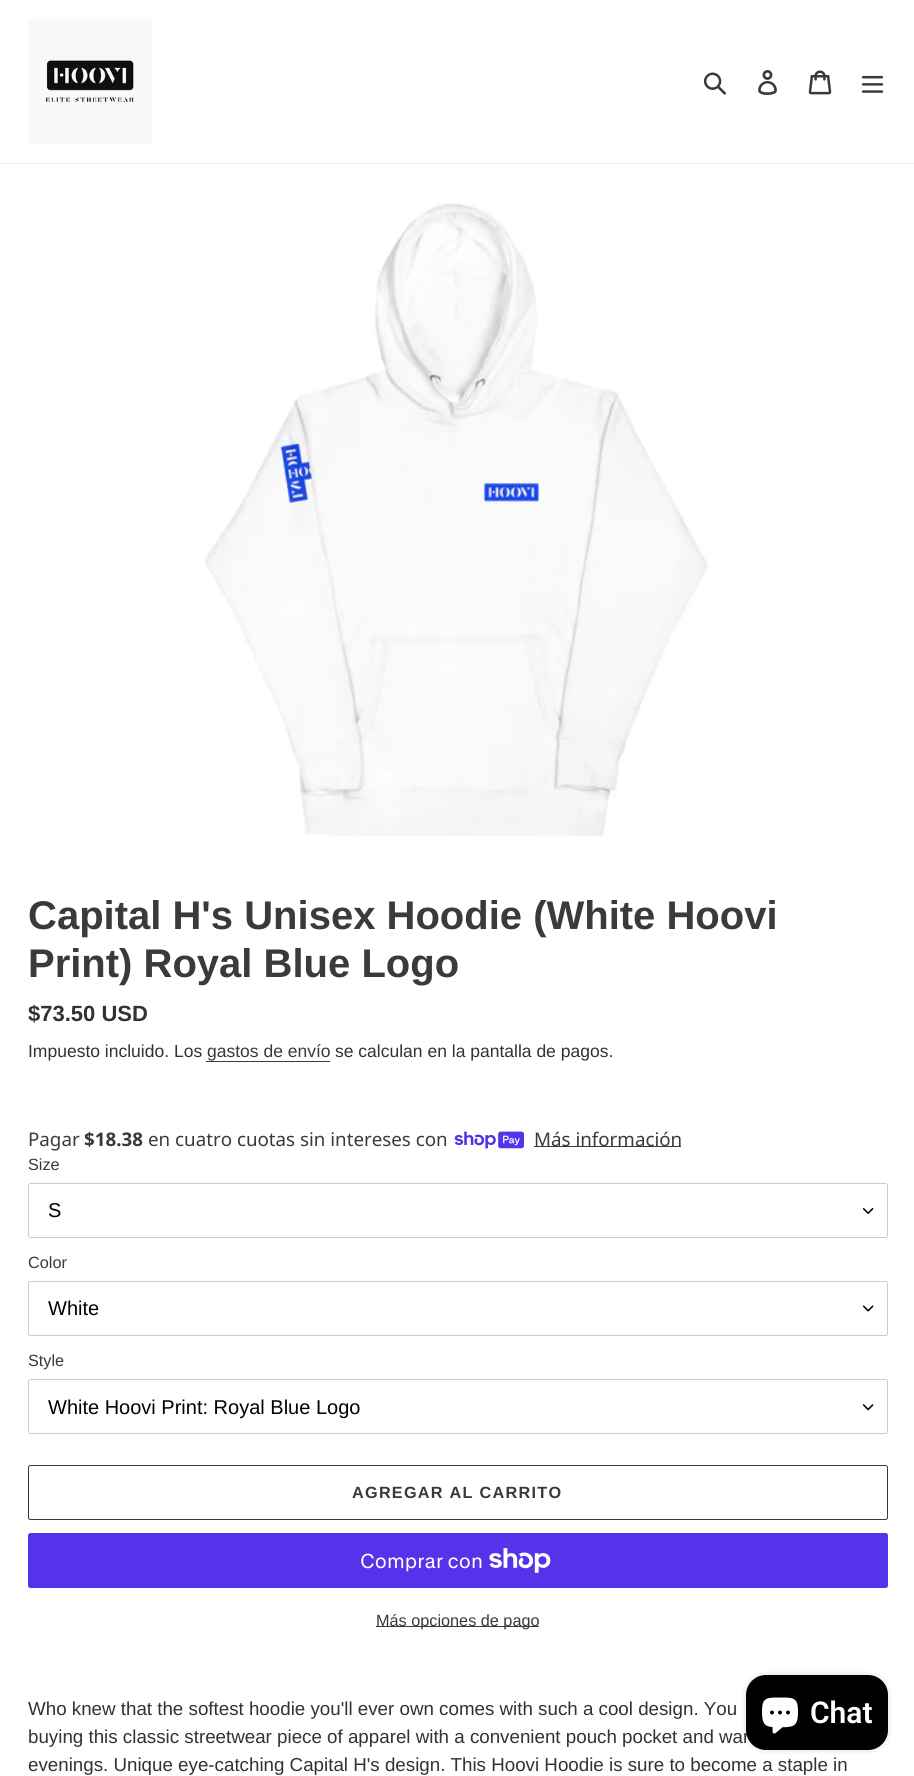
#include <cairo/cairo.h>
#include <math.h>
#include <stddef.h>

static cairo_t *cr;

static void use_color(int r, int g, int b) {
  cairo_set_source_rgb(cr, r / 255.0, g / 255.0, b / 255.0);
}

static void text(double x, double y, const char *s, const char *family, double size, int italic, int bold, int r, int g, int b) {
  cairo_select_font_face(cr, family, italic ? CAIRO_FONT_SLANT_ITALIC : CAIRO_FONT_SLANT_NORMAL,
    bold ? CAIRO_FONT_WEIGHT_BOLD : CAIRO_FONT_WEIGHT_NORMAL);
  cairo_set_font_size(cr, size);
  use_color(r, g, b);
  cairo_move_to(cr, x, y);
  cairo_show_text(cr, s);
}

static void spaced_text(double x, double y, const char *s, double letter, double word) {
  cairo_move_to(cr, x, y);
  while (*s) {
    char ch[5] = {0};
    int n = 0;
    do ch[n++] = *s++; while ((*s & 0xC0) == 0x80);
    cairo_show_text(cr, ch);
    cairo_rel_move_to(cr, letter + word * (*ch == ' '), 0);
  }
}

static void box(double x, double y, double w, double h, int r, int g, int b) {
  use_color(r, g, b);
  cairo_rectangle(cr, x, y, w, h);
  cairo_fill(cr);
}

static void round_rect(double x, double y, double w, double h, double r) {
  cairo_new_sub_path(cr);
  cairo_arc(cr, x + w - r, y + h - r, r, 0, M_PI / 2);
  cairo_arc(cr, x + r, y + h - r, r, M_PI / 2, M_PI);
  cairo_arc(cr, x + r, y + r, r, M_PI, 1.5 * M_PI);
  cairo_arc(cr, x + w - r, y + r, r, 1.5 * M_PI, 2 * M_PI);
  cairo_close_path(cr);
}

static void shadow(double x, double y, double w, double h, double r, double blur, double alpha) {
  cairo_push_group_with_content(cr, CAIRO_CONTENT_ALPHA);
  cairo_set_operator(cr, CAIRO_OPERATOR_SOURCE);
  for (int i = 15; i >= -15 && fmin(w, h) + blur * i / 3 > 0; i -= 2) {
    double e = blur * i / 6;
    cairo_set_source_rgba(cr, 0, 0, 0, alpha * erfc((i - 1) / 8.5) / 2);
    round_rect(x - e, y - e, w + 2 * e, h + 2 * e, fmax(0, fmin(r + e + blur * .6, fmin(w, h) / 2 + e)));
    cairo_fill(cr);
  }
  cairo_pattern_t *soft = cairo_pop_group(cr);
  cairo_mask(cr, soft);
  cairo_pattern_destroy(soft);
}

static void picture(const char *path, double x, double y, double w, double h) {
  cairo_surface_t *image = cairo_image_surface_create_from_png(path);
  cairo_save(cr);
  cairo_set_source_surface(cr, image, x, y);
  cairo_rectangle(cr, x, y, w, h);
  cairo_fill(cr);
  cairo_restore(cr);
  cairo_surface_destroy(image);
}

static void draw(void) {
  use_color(255, 255, 255);
  cairo_paint(cr);
  box(0, 163, 914, 1, 235, 235, 235);
  picture("img_01.png", 28, 19, 124, 125);
  picture("img_02.png", 703, 72, 23, 23);
  picture("img_03.png", 758, 70, 19, 25);
  picture("img_04.png", 808, 70, 24, 25);
  picture("img_05.png", 861, 75, 23, 18);
  picture("img_06.png", 205, 203, 503, 633);
  box(206, 1061, 124, 1, 58, 58, 58);
  picture("img_07.png", 454, 1131, 70, 18);
  box(534, 1146, 147, 1, 58, 58, 58);
  picture("img_08.png", 863, 1208, 11, 6);
  round_rect(28.5, 1183.5, 859, 54, 2);
  use_color(204, 204, 204);
  cairo_set_line_width(cr, 1);
  cairo_stroke(cr);
  picture("img_09.png", 863, 1305, 11, 7);
  round_rect(28.5, 1281.5, 859, 54, 2);
  cairo_stroke(cr);
  picture("img_10.png", 863, 1404, 11, 7);
  round_rect(28.5, 1379.5, 859, 54, 2);
  cairo_stroke(cr);
  round_rect(28.5, 1465.5, 859, 54, 2);
  use_color(58, 58, 58);
  cairo_stroke(cr);
  use_color(84, 51, 235);
  round_rect(28, 1533, 860, 55, 2.5);
  cairo_fill(cr);
  picture("img_11.png", 489, 1548, 62, 25);
  box(376, 1626, 163, 1, 58, 58, 58);
  use_color(0, 0, 0);
  shadow(746, 1675, 142, 75, 20, 3, 0.15);
  text(28, 929, "Capital H's Unisex Hoodie (White Hoovi", "Liberation Sans", 40, 0, 1, 58, 58, 58);
  text(28, 977, "Print) Royal Blue Logo", "Liberation Sans", 40, 0, 1, 58, 58, 58);
  text(28, 1021, "$73.50 USD", "Liberation Sans", 22, 0, 1, 51, 50, 50);
  text(28, 1057, "Impuesto incluido. Los", "Liberation Sans", 17.5, 0, 0, 51, 50, 50);
  text(207, 1057, "gastos de envío", "Liberation Sans", 17.5, 0, 0, 58, 58, 58);
  text(335, 1057, "se calculan en la pantalla de pagos.", "Liberation Sans", 17.5, 0, 0, 51, 50, 50);
  text(28, 1146, "Pagar", "Noto Sans", 18.75, 0, 0, 58, 58, 58);
  text(84, 1146, "$18.38", "Noto Sans", 18.75, 0, 1, 58, 58, 58);
  text(148, 1146, "en cuatro cuotas sin intereses con", "Noto Sans", 18.75, 0, 0, 58, 58, 58);
  text(534, 1146, "Más información", "Noto Sans", 18.75, 0, 0, 58, 58, 58);
  text(28, 1170, "Size", "Liberation Sans", 16.25, 0, 0, 58, 58, 58);
  text(48, 1217, "S", "Liberation Sans", 20, 0, 0, 0, 0, 0);
  text(28, 1268, "Color", "Liberation Sans", 16.25, 0, 0, 58, 58, 58);
  text(48, 1315, "White", "Liberation Sans", 20, 0, 0, 0, 0, 0);
  text(28, 1366, "Style", "Liberation Sans", 16.25, 0, 0, 58, 58, 58);
  text(48, 1414, "White Hoovi Print: Royal Blue Logo", "Liberation Sans", 20, 0, 0, 0, 0, 0);
  cairo_select_font_face(cr, "Liberation Sans", CAIRO_FONT_SLANT_NORMAL, CAIRO_FONT_WEIGHT_BOLD);
  cairo_set_font_size(cr, 16.25);
  use_color(58, 58, 58);
  spaced_text(352, 1498, "AGREGAR AL CARRITO", 1.25, 0);
  text(360, 1568, "Comprar con", "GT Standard", 20, 0, 0, 255, 255, 255);
  text(376, 1626, "Más opciones de pago", "Liberation Sans", 16.25, 0, 0, 58, 58, 58);
  text(28, 1715, "Who knew that the softest hoodie you'll ever own comes with such a cool design. You", "Liberation Sans", 18.75, 0, 0, 51, 50, 50);
  text(28, 1743, "buying this classic streetwear piece of apparel with a convenient pouch pocket and war", "Liberation Sans", 18.75, 0, 0, 51, 50, 50);
  text(28, 1771, "evenings. Unique eye-catching Capital H's design. This Hoovi Hoodie is sure to become a staple in", "Liberation Sans", 18.75, 0, 0, 51, 50, 50);
  use_color(0, 0, 0);
  round_rect(746, 1675, 142, 75, 20);
  cairo_fill(cr);
  picture("img_12.png", 762, 1697, 36, 37);
  text(810, 1723, "Chat", "Roboto SemiBold", 30, 0, 0, 255, 255, 255);
}

int main(void) {
  cairo_surface_t *surface = cairo_image_surface_create(CAIRO_FORMAT_RGB24, 914, 1776);
  cr = cairo_create(surface);
  cairo_font_options_t *options = cairo_font_options_create();
  cairo_font_options_set_hint_metrics(options, CAIRO_HINT_METRICS_OFF);
  cairo_font_options_set_hint_style(options, CAIRO_HINT_STYLE_NONE);
  cairo_set_font_options(cr, options);
  cairo_set_miter_limit(cr, 4);
  draw();
  cairo_surface_write_to_png(surface, "out.png");
  cairo_font_options_destroy(options);
  cairo_destroy(cr);
  cairo_surface_destroy(surface);
  return 0;
}
